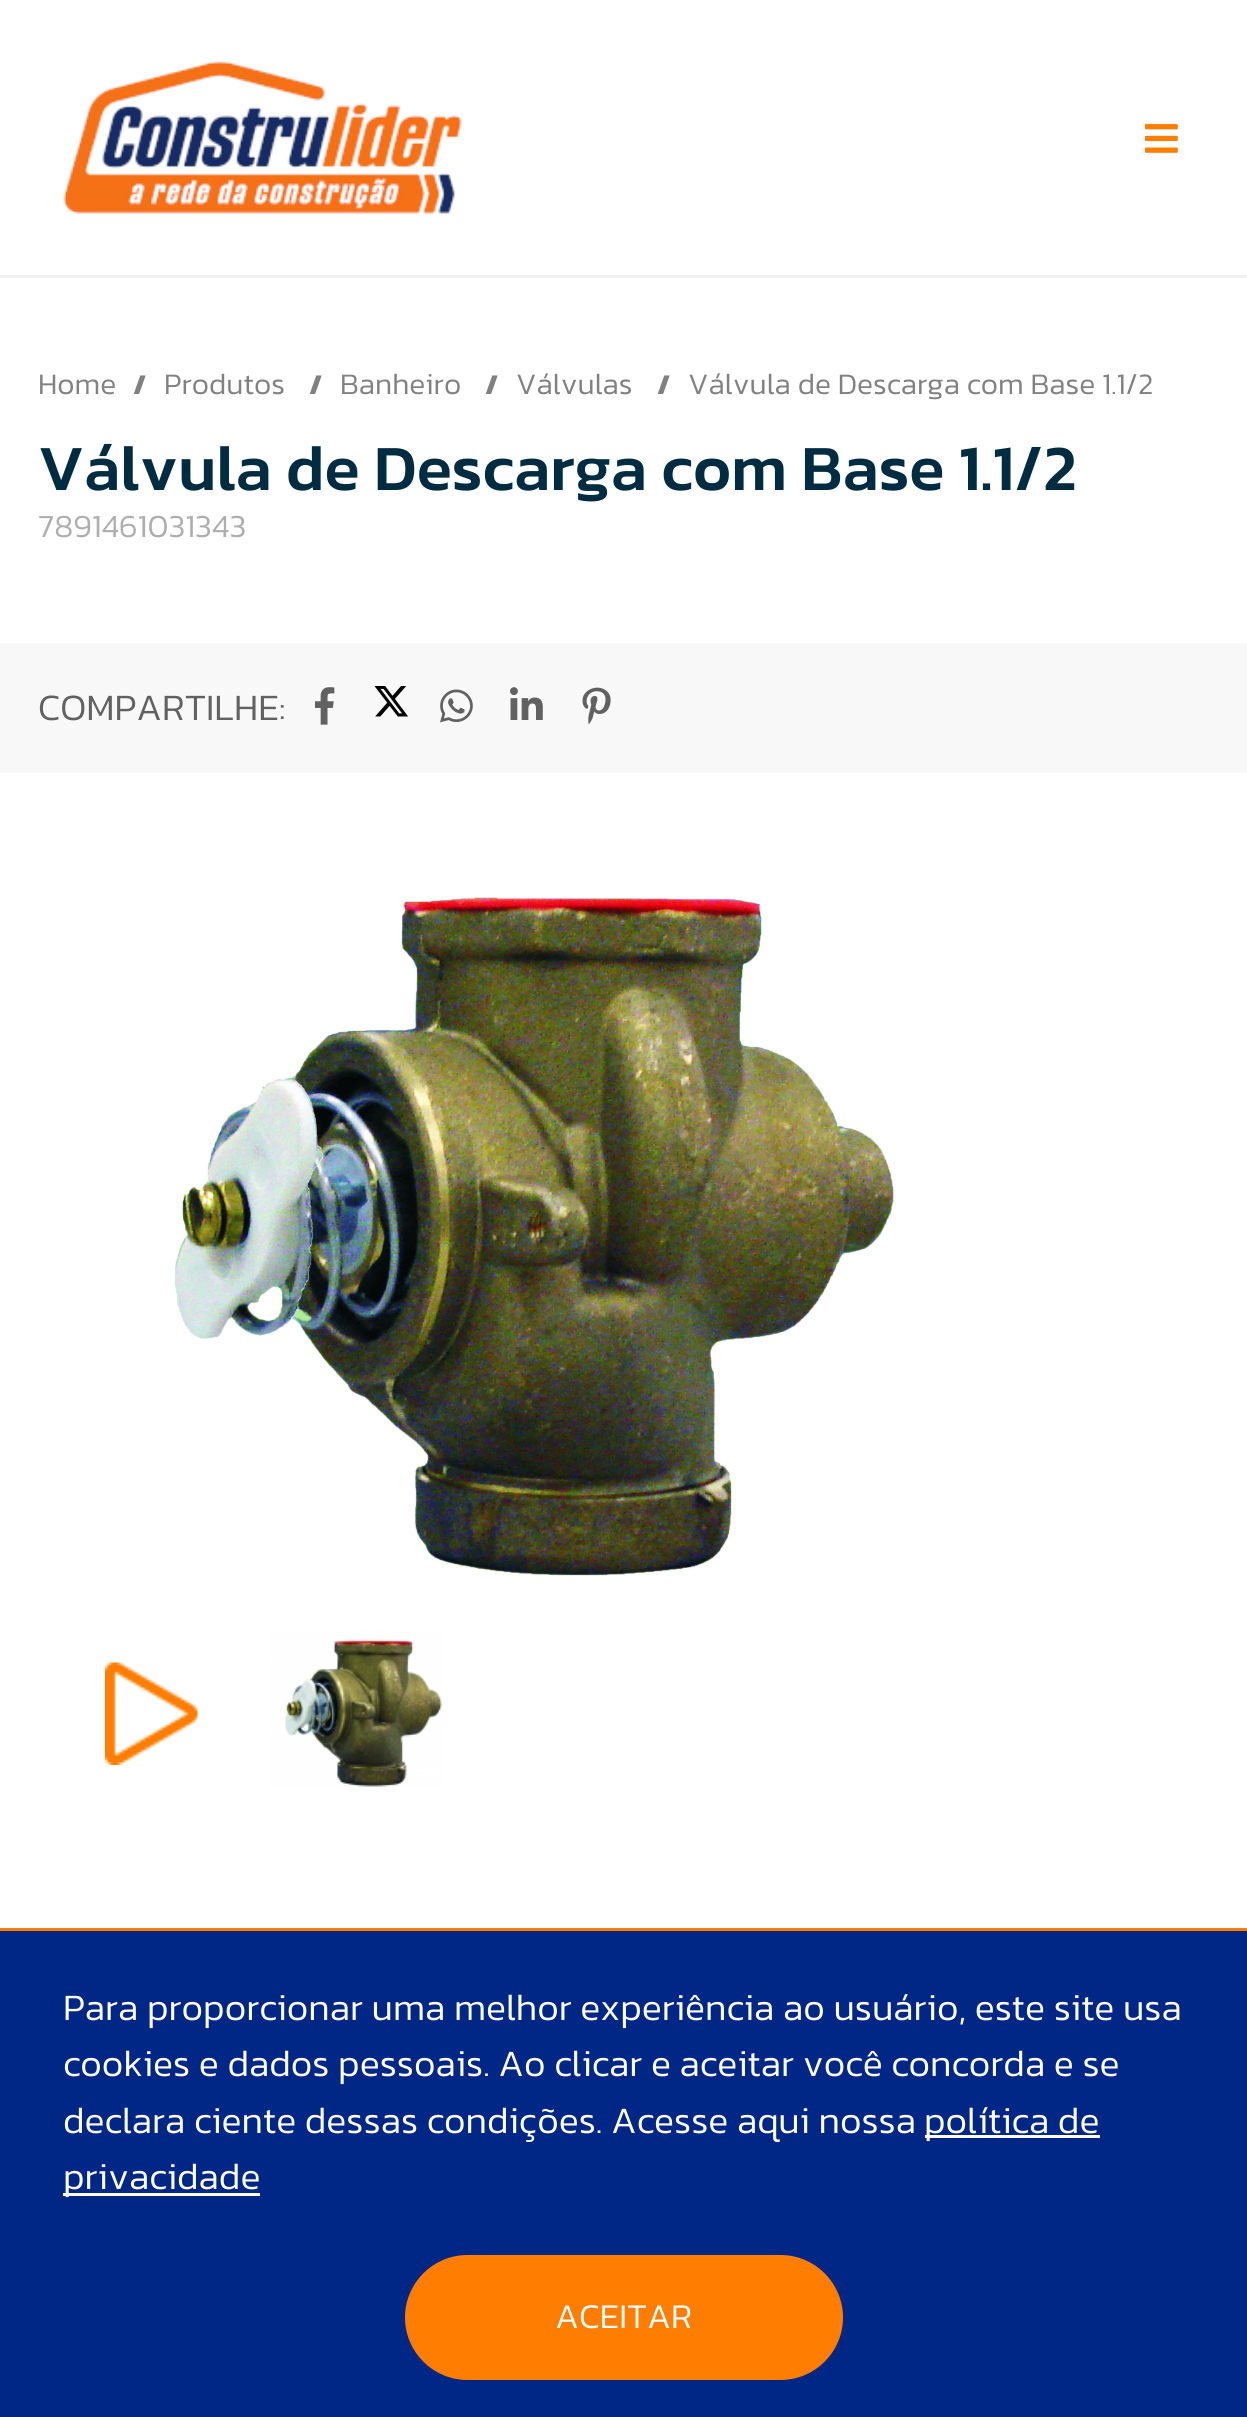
#include <cairo/cairo.h>
#include <math.h>
#include <stddef.h>

static cairo_t *cr;

static void use_color(int r, int g, int b) {
  cairo_set_source_rgb(cr, r / 255.0, g / 255.0, b / 255.0);
}

static void text(double x, double y, const char *s, const char *family, double size, int italic, int bold, int r, int g, int b) {
  cairo_select_font_face(cr, family, italic ? CAIRO_FONT_SLANT_ITALIC : CAIRO_FONT_SLANT_NORMAL,
    bold ? CAIRO_FONT_WEIGHT_BOLD : CAIRO_FONT_WEIGHT_NORMAL);
  cairo_set_font_size(cr, size);
  use_color(r, g, b);
  cairo_move_to(cr, x, y);
  cairo_show_text(cr, s);
}

static void box(double x, double y, double w, double h, int r, int g, int b) {
  use_color(r, g, b);
  cairo_rectangle(cr, x, y, w, h);
  cairo_fill(cr);
}

static void round_rect(double x, double y, double w, double h, double r) {
  cairo_new_sub_path(cr);
  cairo_arc(cr, x + w - r, y + h - r, r, 0, M_PI / 2);
  cairo_arc(cr, x + r, y + h - r, r, M_PI / 2, M_PI);
  cairo_arc(cr, x + r, y + r, r, M_PI, 1.5 * M_PI);
  cairo_arc(cr, x + w - r, y + r, r, 1.5 * M_PI, 2 * M_PI);
  cairo_close_path(cr);
}

static void picture(const char *path, double x, double y, double w, double h) {
  cairo_surface_t *image = cairo_image_surface_create_from_png(path);
  cairo_save(cr);
  cairo_set_source_surface(cr, image, x, y);
  cairo_rectangle(cr, x, y, w, h);
  cairo_fill(cr);
  cairo_restore(cr);
  cairo_surface_destroy(image);
}

static void draw(void) {
  use_color(255, 255, 255);
  cairo_paint(cr);
  box(0, 275, 1247, 3, 241, 241, 241);
  picture("img_01.png", 63, 61, 399, 153);
  picture("img_02.png", 1145, 124, 33, 29);
  box(0, 643, 1247, 130, 248, 248, 248);
  picture("img_03.png", 315, 687, 20, 38);
  picture("img_04.png", 374, 686, 34, 31);
  picture("img_05.png", 440, 689, 33, 34);
  picture("img_06.png", 510, 687, 33, 33);
  picture("img_07.png", 582, 687, 29, 38);
  picture("img_08.png", 174, 897, 720, 679);
  picture("img_09.png", 105, 1662, 93, 103);
  picture("img_10.png", 270, 1630, 173, 157);
  box(0, 1931, 1247, 486, 0, 38, 134);
  box(0, 1928, 1247, 3, 255, 125, 0);
  box(925, 2135, 175, 3, 255, 255, 255);
  box(63, 2193, 197, 3, 255, 255, 255);
  use_color(255, 125, 0);
  round_rect(405, 2255, 438, 125, 62.5);
  cairo_fill(cr);
  text(38, 394, "Home", "Kanit Light", 30, 0, 0, 129, 129, 129);
  text(133, 394, "/", "Kanit", 28, 0, 1, 129, 129, 129);
  text(164, 394, "Produtos", "Kanit Light", 30, 0, 0, 129, 129, 129);
  text(309, 394, "/", "Kanit", 28, 0, 1, 129, 129, 129);
  text(340, 394, "Banheiro", "Kanit Light", 30, 0, 0, 129, 129, 129);
  text(485, 394, "/", "Kanit", 28, 0, 1, 129, 129, 129);
  text(516, 394, "Válvulas", "Kanit Light", 30, 0, 0, 129, 129, 129);
  text(657, 394, "/", "Kanit", 28, 0, 1, 129, 129, 129);
  text(688, 394, "Válvula de Descarga com Base 1.1/2", "Kanit Light", 30, 0, 0, 129, 129, 129);
  text(38, 490, "Válvula de Descarga com Base 1.1/2", "Kanit Medium", 65, 0, 0, 0, 44, 66);
  text(38, 537, "7891461031343", "Kanit Light", 32.5, 0, 0, 174, 174, 174);
  text(38, 720, "COMPARTILHE:", "Kanit Light", 37.5, 0, 0, 97, 97, 97);
  text(63, 2020, "Para proporcionar uma melhor experiência ao usuário, este site usa", "Kanit Light", 37.5, 0, 0, 255, 255, 255);
  text(63, 2076, "cookies e dados pessoais. Ao clicar e aceitar você concorda e se", "Kanit Light", 37.5, 0, 0, 255, 255, 255);
  text(63, 2133, "declara ciente dessas condições. Acesse aqui nossa", "Kanit Light", 37.5, 0, 0, 255, 255, 255);
  text(924, 2133, "política de", "Kanit Light", 37.5, 0, 0, 255, 255, 255);
  text(63, 2189, "privacidade", "Kanit Light", 37.5, 0, 0, 255, 255, 255);
  text(555, 2328, "ACEITAR", "Kanit Light", 35, 0, 0, 255, 255, 255);
}

int main(void) {
  cairo_surface_t *surface = cairo_image_surface_create(CAIRO_FORMAT_RGB24, 1247, 2417);
  cr = cairo_create(surface);
  cairo_font_options_t *options = cairo_font_options_create();
  cairo_font_options_set_hint_metrics(options, CAIRO_HINT_METRICS_OFF);
  cairo_font_options_set_hint_style(options, CAIRO_HINT_STYLE_NONE);
  cairo_set_font_options(cr, options);
  cairo_set_miter_limit(cr, 4);
  draw();
  cairo_surface_write_to_png(surface, "out.png");
  cairo_font_options_destroy(options);
  cairo_destroy(cr);
  cairo_surface_destroy(surface);
  return 0;
}
